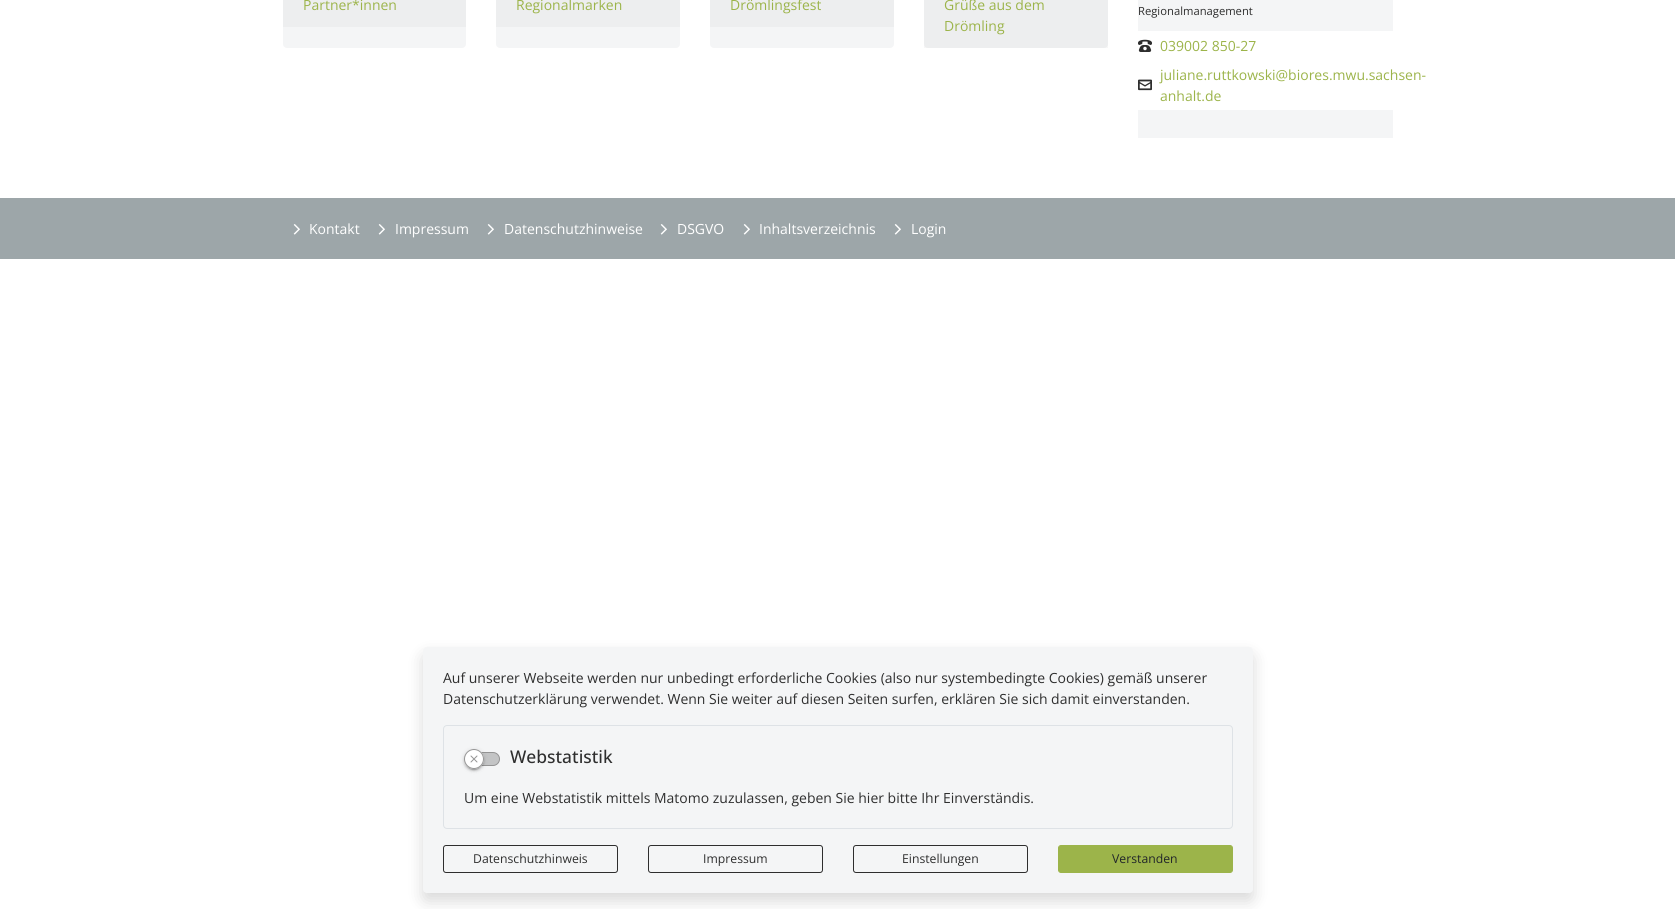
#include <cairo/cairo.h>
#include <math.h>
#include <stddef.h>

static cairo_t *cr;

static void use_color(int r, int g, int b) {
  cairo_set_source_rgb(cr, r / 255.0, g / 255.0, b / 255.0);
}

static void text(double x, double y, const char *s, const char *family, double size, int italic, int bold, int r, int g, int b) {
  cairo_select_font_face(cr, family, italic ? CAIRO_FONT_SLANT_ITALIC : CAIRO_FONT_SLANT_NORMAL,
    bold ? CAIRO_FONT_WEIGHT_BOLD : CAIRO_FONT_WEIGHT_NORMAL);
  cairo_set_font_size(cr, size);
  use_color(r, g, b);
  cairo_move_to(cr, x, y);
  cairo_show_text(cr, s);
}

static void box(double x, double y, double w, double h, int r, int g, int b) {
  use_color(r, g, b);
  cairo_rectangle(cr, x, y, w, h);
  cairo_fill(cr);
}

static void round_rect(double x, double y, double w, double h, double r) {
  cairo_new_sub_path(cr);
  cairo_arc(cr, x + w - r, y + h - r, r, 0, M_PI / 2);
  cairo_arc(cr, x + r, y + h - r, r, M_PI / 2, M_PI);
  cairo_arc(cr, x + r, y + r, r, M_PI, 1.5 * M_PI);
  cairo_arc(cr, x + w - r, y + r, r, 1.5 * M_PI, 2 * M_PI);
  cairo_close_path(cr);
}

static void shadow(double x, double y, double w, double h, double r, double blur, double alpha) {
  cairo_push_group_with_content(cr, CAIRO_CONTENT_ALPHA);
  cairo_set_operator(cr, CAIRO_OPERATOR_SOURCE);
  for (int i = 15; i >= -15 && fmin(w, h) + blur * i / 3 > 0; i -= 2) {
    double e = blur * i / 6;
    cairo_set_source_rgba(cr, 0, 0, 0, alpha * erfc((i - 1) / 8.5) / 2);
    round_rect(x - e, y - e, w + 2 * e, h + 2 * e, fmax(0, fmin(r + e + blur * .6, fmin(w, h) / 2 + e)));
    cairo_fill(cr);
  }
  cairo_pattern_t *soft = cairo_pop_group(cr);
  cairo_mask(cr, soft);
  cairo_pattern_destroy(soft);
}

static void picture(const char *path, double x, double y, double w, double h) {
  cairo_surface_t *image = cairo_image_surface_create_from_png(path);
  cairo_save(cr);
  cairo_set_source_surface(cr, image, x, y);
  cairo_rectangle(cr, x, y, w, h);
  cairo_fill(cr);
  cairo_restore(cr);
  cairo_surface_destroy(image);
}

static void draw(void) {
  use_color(255, 255, 255);
  cairo_paint(cr);
  box(924, 44, 184, 4, 247, 247, 247);
  use_color(244, 245, 246);
  round_rect(283, -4, 183, 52, 4);
  cairo_fill(cr);
  box(283, 0, 183, 27, 237, 238, 239);
  use_color(244, 245, 246);
  round_rect(496, -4, 184, 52, 4);
  cairo_fill(cr);
  box(496, 0, 184, 27, 237, 238, 239);
  use_color(244, 245, 246);
  round_rect(710, -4, 184, 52, 4);
  cairo_fill(cr);
  box(710, 0, 184, 27, 237, 238, 239);
  round_rect(924, -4, 184, 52, 4);
  cairo_fill(cr);
  box(1138, 0, 255, 138, 244, 245, 246);
  box(1138, 31, 255, 79, 255, 255, 255);
  picture("img_01.png", 1138, 39, 14, 13);
  picture("img_02.png", 1138, 79, 14, 12);
  box(0, 198, 1675, 61, 157, 166, 169);
  picture("img_03.png", 293, 224, 7, 11);
  picture("img_03.png", 378, 224, 7, 11);
  picture("img_03.png", 487, 224, 7, 11);
  picture("img_03.png", 660, 224, 7, 11);
  picture("img_03.png", 743, 224, 7, 11);
  picture("img_03.png", 894, 224, 7, 11);
  use_color(0, 0, 0);
  shadow(423, 655, 830, 246, 4, 8, 0.15);
  use_color(244, 245, 246);
  round_rect(423, 647, 830, 246, 4);
  cairo_fill(cr);
  round_rect(443.5, 725.5, 789, 103, 3.5);
  use_color(222, 226, 230);
  cairo_set_line_width(cr, 1);
  cairo_stroke(cr);
  use_color(195, 196, 197);
  round_rect(464.5, 752.5, 35, 13, 6.5);
  cairo_fill_preserve(cr);
  use_color(148, 148, 148);
  cairo_stroke(cr);
  use_color(0, 0, 0);
  shadow(464, 750, 20, 20, 10, 2.5, 0.12);
  shadow(464, 751, 20, 20, 10, 1, 0.14);
  shadow(466, 754, 16, 16, 8, 0.5, 0.2);
  use_color(255, 255, 255);
  cairo_arc(cr, 474, 759, 10, 0, 2 * M_PI);
  cairo_fill(cr);
  picture("img_04.png", 470, 755, 8, 8);
  cairo_arc(cr, 474, 759, 9.5, 0, 2 * M_PI);
  use_color(148, 148, 148);
  cairo_stroke(cr);
  round_rect(443.5, 845.5, 174, 27, 2.5);
  use_color(46, 46, 46);
  cairo_stroke(cr);
  round_rect(648.5, 845.5, 174, 27, 2.5);
  cairo_stroke(cr);
  round_rect(853.5, 845.5, 174, 27, 2.5);
  cairo_stroke(cr);
  use_color(156, 180, 74);
  round_rect(1058.5, 845.5, 174, 27, 2.5);
  cairo_fill_preserve(cr);
  cairo_stroke(cr);
  text(303, 10, "Partner*innen", "Open Sans", 14, 0, 0, 156, 180, 74);
  text(516, 10, "Regionalmarken", "Open Sans", 14, 0, 0, 156, 180, 74);
  text(730, 10, "Drömlingsfest", "Open Sans", 14, 0, 0, 156, 180, 74);
  text(944, 10, "Grüße aus dem", "Open Sans", 14, 0, 0, 156, 180, 74);
  text(944, 31, "Drömling", "Open Sans", 14, 0, 0, 156, 180, 74);
  text(1138, 15, "Regionalmanagement", "Open Sans", 11.25, 0, 0, 46, 46, 46);
  text(1160, 51, "039002 850-27", "Open Sans", 14, 0, 0, 156, 180, 74);
  text(1160, 80, "juliane.ruttkowski@biores.mwu.sachsen-", "Open Sans", 14, 0, 0, 156, 180, 74);
  text(1160, 101, "anhalt.de", "Open Sans", 14, 0, 0, 156, 180, 74);
  text(309, 234, "Kontakt", "Open Sans", 14, 0, 0, 255, 255, 255);
  text(395, 234, "Impressum", "Open Sans", 14, 0, 0, 255, 255, 255);
  text(504, 234, "Datenschutzhinweise", "Open Sans", 14, 0, 0, 255, 255, 255);
  text(677, 234, "DSGVO", "Open Sans", 14, 0, 0, 255, 255, 255);
  text(759, 234, "Inhaltsverzeichnis", "Open Sans", 14, 0, 0, 255, 255, 255);
  text(911, 234, "Login", "Open Sans", 14, 0, 0, 255, 255, 255);
  text(443, 683, "Auf unserer Webseite werden nur unbedingt erforderliche Cookies (also nur systembedingte Cookies) gemäß unserer", "Open Sans", 14, 0, 0, 46, 46, 46);
  text(443, 704, "Datenschutzerklärung verwendet. Wenn Sie weiter auf diesen Seiten surfen, erklären Sie sich damit einverstanden.", "Open Sans", 14, 0, 0, 46, 46, 46);
  text(510, 763, "Webstatistik", "Open Sans Medium", 17.5, 0, 0, 46, 46, 46);
  text(464, 803, "Um eine Webstatistik mittels Matomo zuzulassen, geben Sie hier bitte Ihr Einverständis.", "Open Sans", 14, 0, 0, 46, 46, 46);
  text(473, 863, "Datenschutzhinweis", "Open Sans", 12.25, 0, 0, 46, 46, 46);
  text(703, 863, "Impressum", "Open Sans", 12.25, 0, 0, 46, 46, 46);
  text(902, 863, "Einstellungen", "Open Sans", 12.25, 0, 0, 46, 46, 46);
  text(1112, 863, "Verstanden", "Open Sans", 12.25, 0, 0, 33, 37, 41);
}

int main(void) {
  cairo_surface_t *surface = cairo_image_surface_create(CAIRO_FORMAT_RGB24, 1675, 909);
  cr = cairo_create(surface);
  cairo_font_options_t *options = cairo_font_options_create();
  cairo_font_options_set_hint_metrics(options, CAIRO_HINT_METRICS_OFF);
  cairo_font_options_set_hint_style(options, CAIRO_HINT_STYLE_NONE);
  cairo_set_font_options(cr, options);
  cairo_set_miter_limit(cr, 4);
  draw();
  cairo_surface_write_to_png(surface, "out.png");
  cairo_font_options_destroy(options);
  cairo_destroy(cr);
  cairo_surface_destroy(surface);
  return 0;
}
